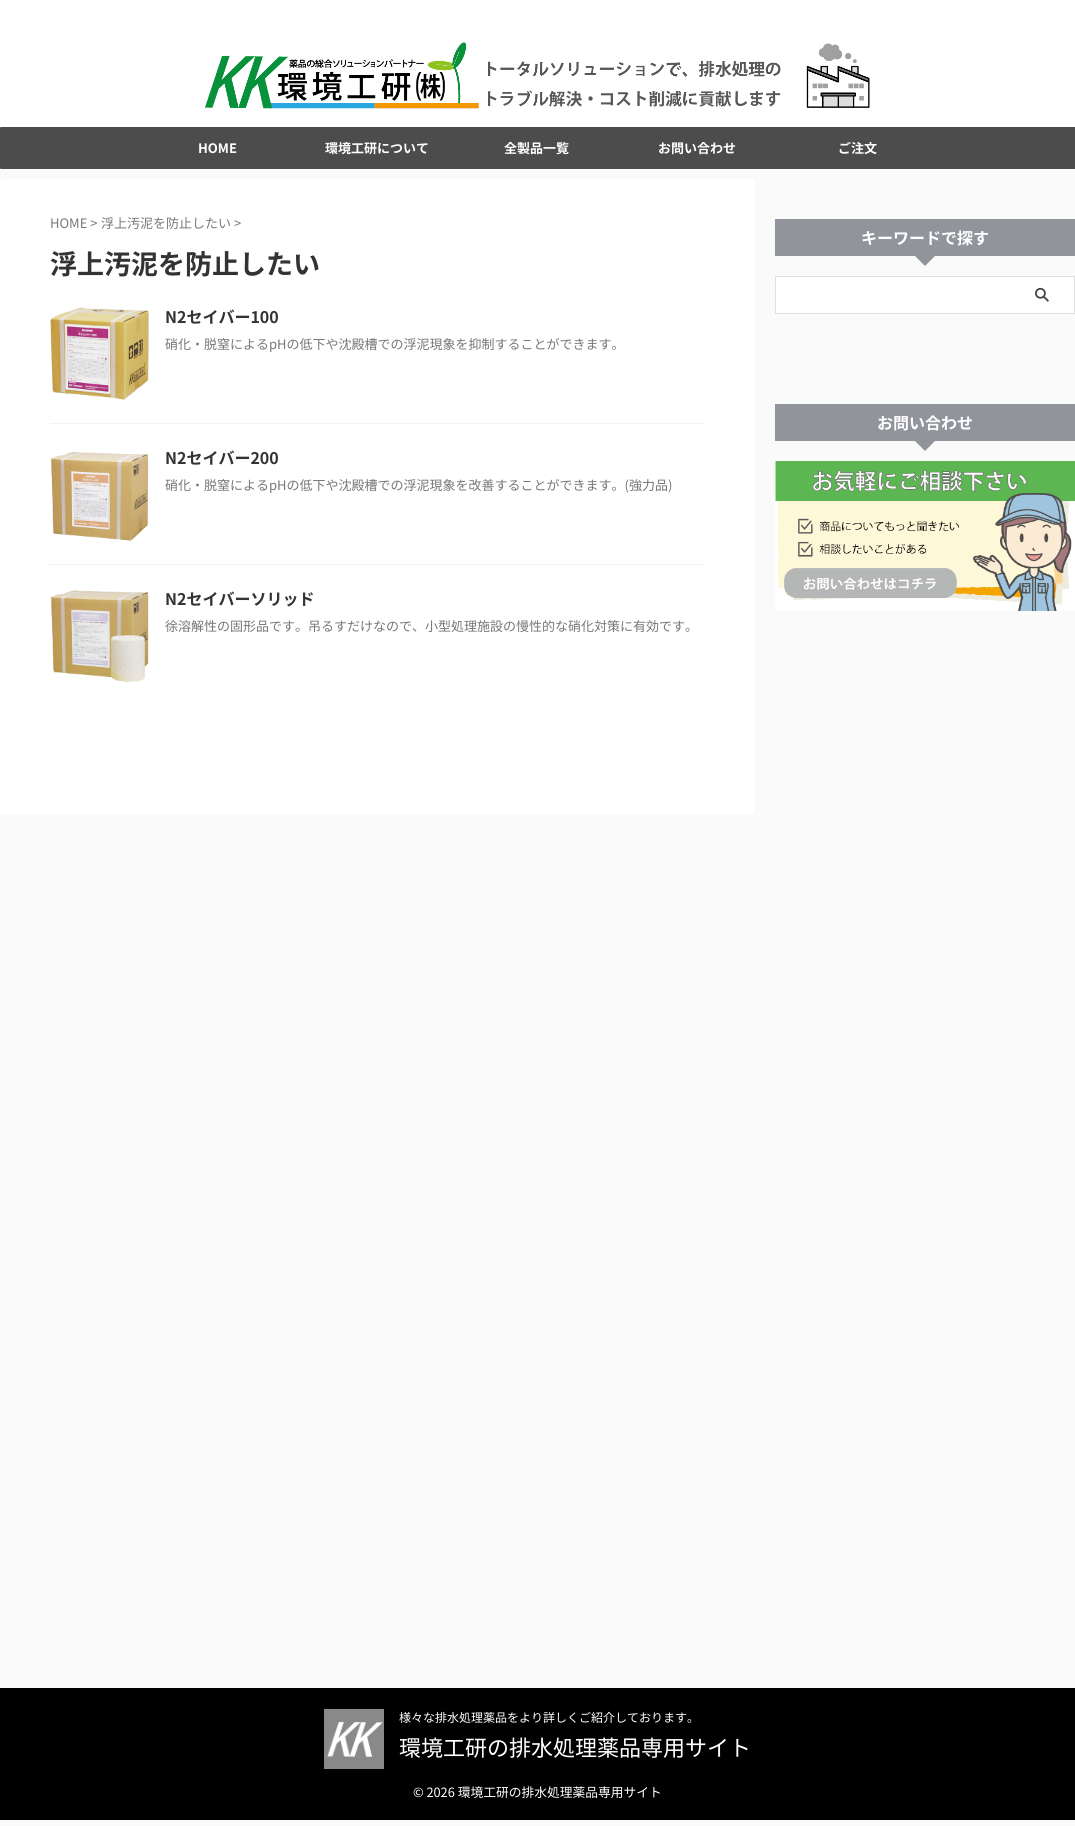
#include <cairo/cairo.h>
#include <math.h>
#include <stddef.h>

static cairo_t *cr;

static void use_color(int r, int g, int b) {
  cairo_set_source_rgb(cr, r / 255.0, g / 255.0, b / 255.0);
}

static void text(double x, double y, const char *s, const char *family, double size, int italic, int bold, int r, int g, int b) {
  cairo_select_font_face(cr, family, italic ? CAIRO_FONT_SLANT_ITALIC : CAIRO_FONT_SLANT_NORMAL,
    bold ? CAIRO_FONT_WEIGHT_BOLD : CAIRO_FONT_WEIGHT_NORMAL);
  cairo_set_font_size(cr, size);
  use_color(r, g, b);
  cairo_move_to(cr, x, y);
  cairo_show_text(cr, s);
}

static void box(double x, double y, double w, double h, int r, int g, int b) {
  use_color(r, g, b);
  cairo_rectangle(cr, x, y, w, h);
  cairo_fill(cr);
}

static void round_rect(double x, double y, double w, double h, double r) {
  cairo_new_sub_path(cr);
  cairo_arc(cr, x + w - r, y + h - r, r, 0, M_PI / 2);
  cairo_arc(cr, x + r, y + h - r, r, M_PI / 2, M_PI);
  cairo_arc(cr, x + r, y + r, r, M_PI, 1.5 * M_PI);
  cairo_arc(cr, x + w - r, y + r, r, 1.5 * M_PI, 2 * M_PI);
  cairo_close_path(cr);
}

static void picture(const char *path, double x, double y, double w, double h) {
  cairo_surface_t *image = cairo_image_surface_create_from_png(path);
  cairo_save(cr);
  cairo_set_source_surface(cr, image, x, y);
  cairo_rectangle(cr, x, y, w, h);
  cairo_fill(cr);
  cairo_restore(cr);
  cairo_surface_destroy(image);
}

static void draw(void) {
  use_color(250, 250, 250);
  cairo_paint(cr);
  box(0, 0, 1075, 127, 255, 255, 255);
  picture("img_01.png", 205, 42, 665, 67);
  use_color(76, 76, 76);
  round_rect(0, 127, 1075, 42, 1);
  cairo_fill(cr);
  box(1074, 127, 1, 1, 76, 76, 76);
  box(1074, 168, 1, 1, 76, 76, 76);
  use_color(255, 255, 255);
  round_rect(0, 179, 755, 636, 4);
  cairo_fill(cr);
  box(50, 423, 655, 1, 243, 243, 243);
  picture("img_02.png", 50, 307, 99, 93);
  box(50, 564, 655, 1, 243, 243, 243);
  picture("img_03.png", 50, 452, 99, 89);
  picture("img_04.png", 50, 590, 99, 93);
  box(775, 219, 300, 37, 146, 148, 156);
  cairo_new_path(cr);
  cairo_move_to(cr, 915, 256);
  cairo_line_to(cr, 935, 256);
  cairo_line_to(cr, 925, 266);
  cairo_close_path(cr);
  cairo_fill(cr);
  cairo_rectangle(cr, 775.5, 276.5, 299, 37);
  use_color(224, 224, 224);
  cairo_set_line_width(cr, 1);
  cairo_stroke(cr);
  box(776, 277, 298, 36, 255, 255, 255);
  picture("img_05.png", 1035, 287, 14, 15);
  box(775, 404, 300, 37, 146, 148, 156);
  cairo_new_path(cr);
  cairo_move_to(cr, 915, 441);
  cairo_line_to(cr, 935, 441);
  cairo_line_to(cr, 925, 451);
  cairo_close_path(cr);
  cairo_fill(cr);
  picture("img_06.png", 775, 461, 300, 150);
  box(0, 1688, 1075, 132, 0, 0, 0);
  picture("img_07.png", 324, 1709, 60, 60);
  text(198, 153, "HOME", "Noto Sans JP", 13, 0, 1, 255, 255, 255);
  text(325, 153, "環境工研について", "Noto Sans JP", 13, 0, 1, 255, 255, 255);
  text(504, 153, "全製品一覧", "Noto Sans JP", 13, 0, 1, 255, 255, 255);
  text(658, 153, "お問い合わせ", "Noto Sans JP", 13, 0, 1, 255, 255, 255);
  text(838, 153, "ご注文", "Noto Sans JP", 13, 0, 1, 255, 255, 255);
  text(50, 228, "HOME >", "Noto Sans JP", 13, 0, 0, 119, 119, 119);
  text(101, 228, "浮上汚泥を防止したい >", "Noto Sans JP", 13, 0, 0, 119, 119, 119);
  text(50, 274, "浮上汚泥を防止したい", "Noto Sans JP", 27, 0, 1, 51, 51, 51);
  text(165, 323, "N2セイバー100", "Noto Sans JP", 16, 0, 1, 51, 51, 51);
  text(165, 349, "硝化・脱窒によるpHの低下や沈殿槽での浮泥現象を抑制することができます。", "Noto Sans JP", 13, 0, 0, 119, 119, 119);
  text(165, 464, "N2セイバー200", "Noto Sans JP", 16, 0, 1, 51, 51, 51);
  text(165, 490, "硝化・脱窒によるpHの低下や沈殿槽での浮泥現象を改善することができます。(強力品)", "Noto Sans JP", 13, 0, 0, 119, 119, 119);
  text(165, 605, "N2セイバーソリッド", "Noto Sans JP", 16, 0, 1, 51, 51, 51);
  text(165, 631, "徐溶解性の固形品です。吊るすだけなので、小型処理施設の慢性的な硝化対策に有効です。", "Noto Sans JP", 13, 0, 0, 119, 119, 119);
  text(861, 244, "キーワードで探す", "Noto Sans JP", 16, 0, 1, 255, 255, 255);
  text(877, 429, "お問い合わせ", "Noto Sans JP", 16, 0, 1, 255, 255, 255);
  text(399, 1722, "様々な排水処理薬品をより詳しくご紹介しております。", "Noto Sans JP", 12, 0, 0, 255, 255, 255);
  text(399, 1756, "環境工研の排水処理薬品専用サイト", "Noto Sans JP", 22, 0, 0, 255, 255, 255);
  text(413, 1797, "© 2026 環境工研の排水処理薬品専用サイト", "Noto Sans JP", 12.75, 0, 0, 255, 255, 255);
}

int main(void) {
  cairo_surface_t *surface = cairo_image_surface_create(CAIRO_FORMAT_RGB24, 1075, 1826);
  cr = cairo_create(surface);
  cairo_font_options_t *options = cairo_font_options_create();
  cairo_font_options_set_hint_metrics(options, CAIRO_HINT_METRICS_OFF);
  cairo_font_options_set_hint_style(options, CAIRO_HINT_STYLE_NONE);
  cairo_set_font_options(cr, options);
  cairo_set_miter_limit(cr, 4);
  draw();
  cairo_surface_write_to_png(surface, "out.png");
  cairo_font_options_destroy(options);
  cairo_destroy(cr);
  cairo_surface_destroy(surface);
  return 0;
}
